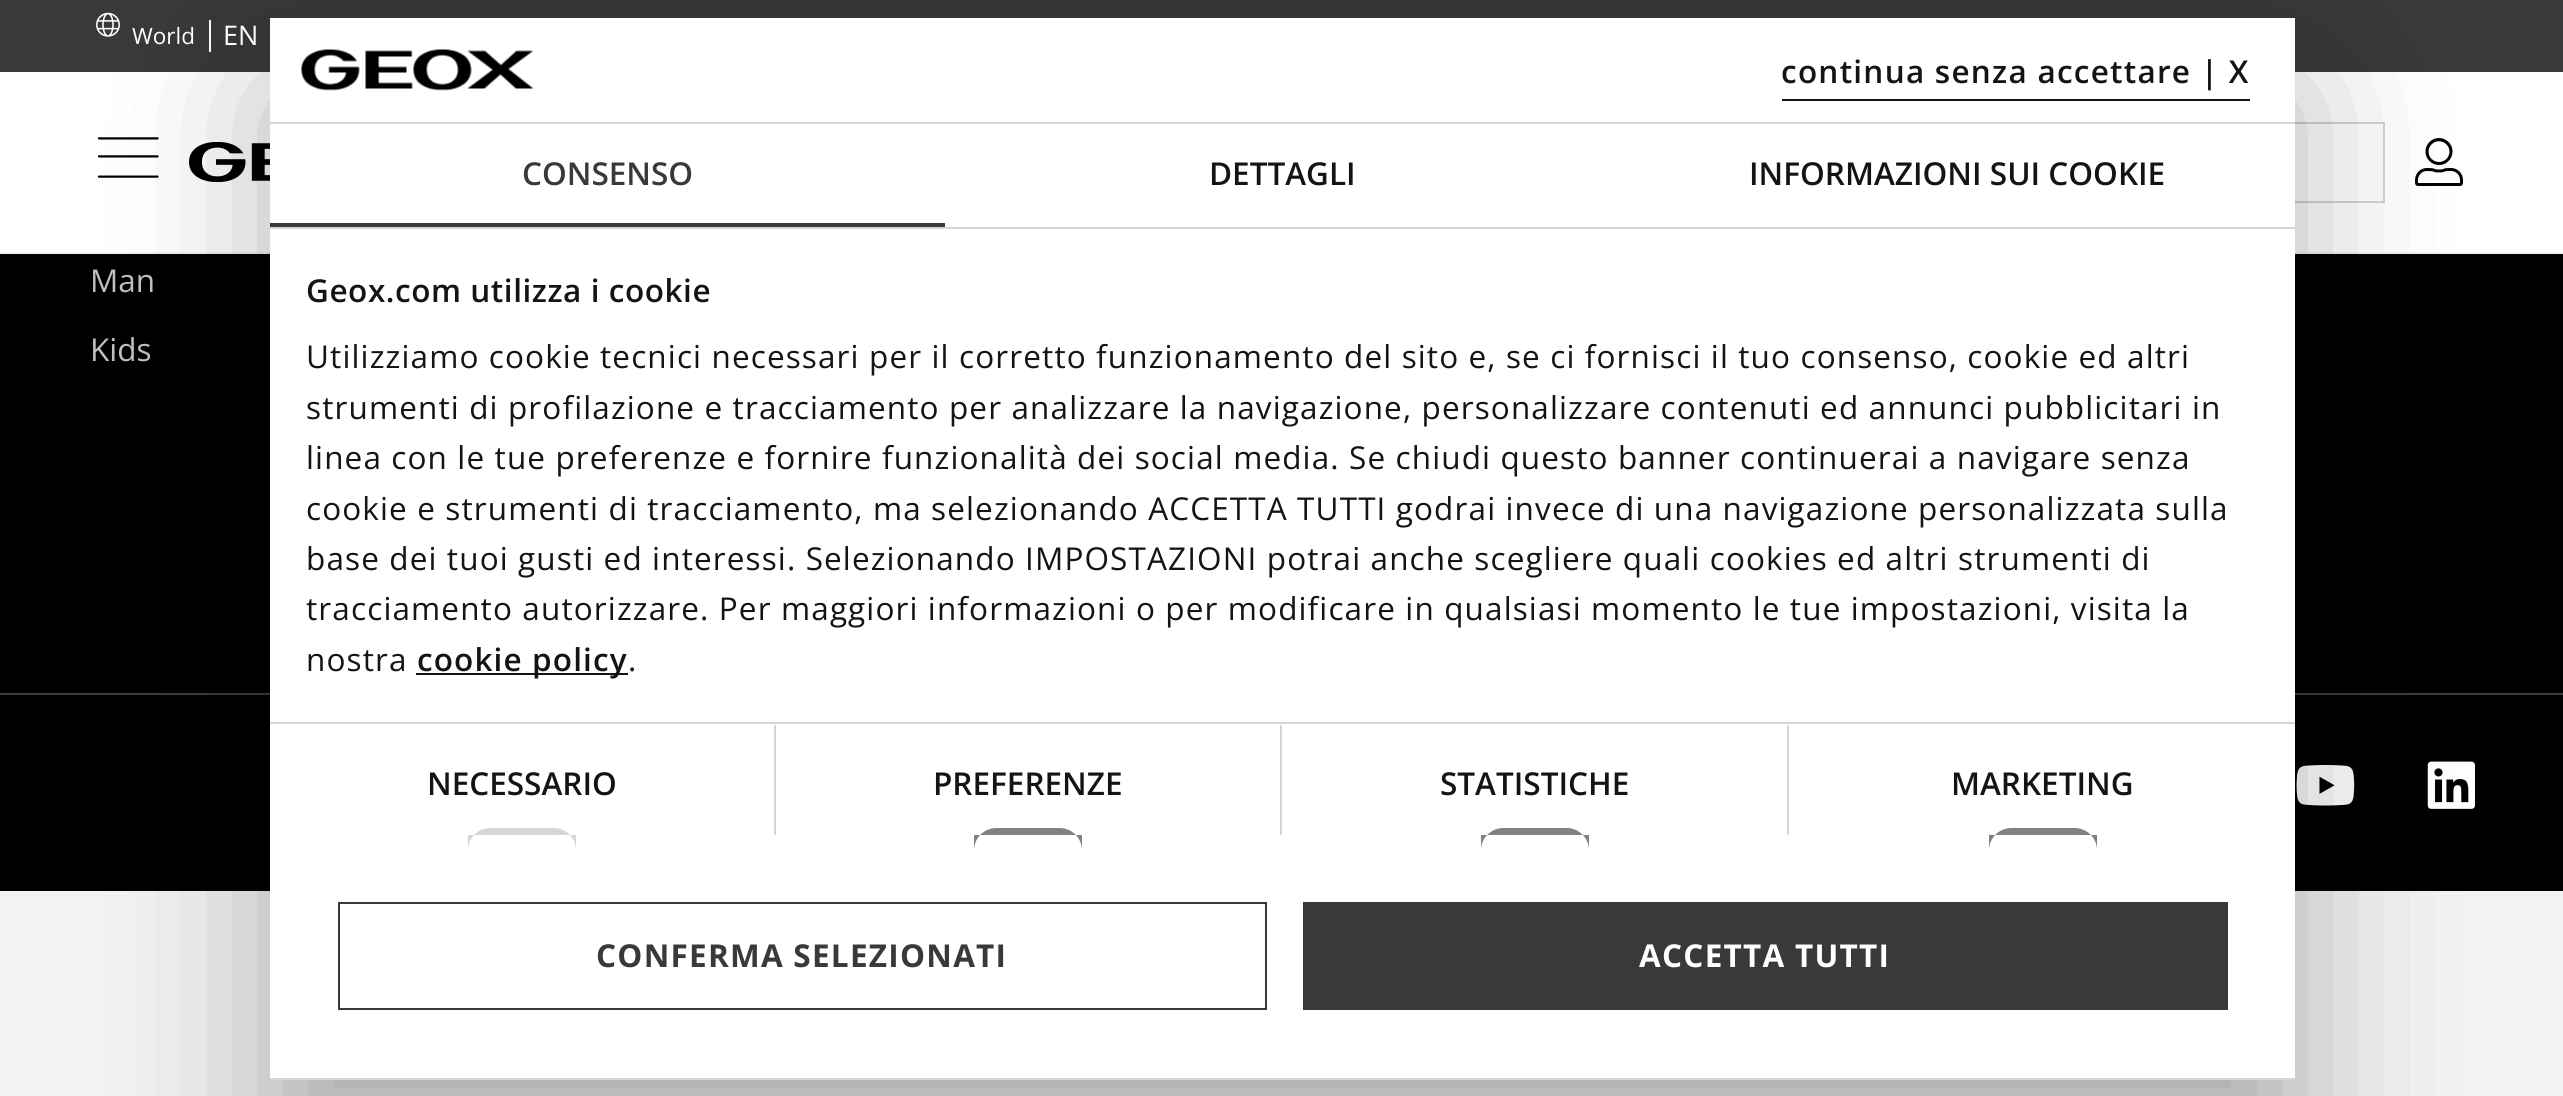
#include <cairo/cairo.h>
#include <math.h>
#include <stddef.h>

static cairo_t *cr;

static void use_color(int r, int g, int b) {
  cairo_set_source_rgb(cr, r / 255.0, g / 255.0, b / 255.0);
}

static void text(double x, double y, const char *s, const char *family, double size, int italic, int bold, int r, int g, int b) {
  cairo_select_font_face(cr, family, italic ? CAIRO_FONT_SLANT_ITALIC : CAIRO_FONT_SLANT_NORMAL,
    bold ? CAIRO_FONT_WEIGHT_BOLD : CAIRO_FONT_WEIGHT_NORMAL);
  cairo_set_font_size(cr, size);
  use_color(r, g, b);
  cairo_move_to(cr, x, y);
  cairo_show_text(cr, s);
}

static void spaced_text(double x, double y, const char *s, double letter, double word) {
  cairo_move_to(cr, x, y);
  while (*s) {
    char ch[5] = {0};
    int n = 0;
    do ch[n++] = *s++; while ((*s & 0xC0) == 0x80);
    cairo_show_text(cr, ch);
    cairo_rel_move_to(cr, letter + word * (*ch == ' '), 0);
  }
}

static void box(double x, double y, double w, double h, int r, int g, int b) {
  use_color(r, g, b);
  cairo_rectangle(cr, x, y, w, h);
  cairo_fill(cr);
}

static void round_rect(double x, double y, double w, double h, double r) {
  cairo_new_sub_path(cr);
  cairo_arc(cr, x + w - r, y + h - r, r, 0, M_PI / 2);
  cairo_arc(cr, x + r, y + h - r, r, M_PI / 2, M_PI);
  cairo_arc(cr, x + r, y + r, r, M_PI, 1.5 * M_PI);
  cairo_arc(cr, x + w - r, y + r, r, 1.5 * M_PI, 2 * M_PI);
  cairo_close_path(cr);
}

static void shadow(double x, double y, double w, double h, double r, double blur, double alpha) {
  cairo_push_group_with_content(cr, CAIRO_CONTENT_ALPHA);
  cairo_set_operator(cr, CAIRO_OPERATOR_SOURCE);
  for (int i = 15; i >= -15 && fmin(w, h) + blur * i / 3 > 0; i -= 2) {
    double e = blur * i / 6;
    cairo_set_source_rgba(cr, 0, 0, 0, alpha * erfc((i - 1) / 8.5) / 2);
    round_rect(x - e, y - e, w + 2 * e, h + 2 * e, fmax(0, fmin(r + e + blur * .6, fmin(w, h) / 2 + e)));
    cairo_fill(cr);
  }
  cairo_pattern_t *soft = cairo_pop_group(cr);
  cairo_mask(cr, soft);
  cairo_pattern_destroy(soft);
}

static void picture(const char *path, double x, double y, double w, double h) {
  cairo_surface_t *image = cairo_image_surface_create_from_png(path);
  cairo_save(cr);
  cairo_set_source_surface(cr, image, x, y);
  cairo_rectangle(cr, x, y, w, h);
  cairo_fill(cr);
  cairo_restore(cr);
  cairo_surface_destroy(image);
}

static void draw(void) {
  use_color(0, 0, 0);
  cairo_paint(cr);
  box(0, 72, 2563, 180, 255, 255, 255);
  box(0, 0, 2563, 72, 55, 58, 54);
  picture("img_01.png", 96, 12, 24, 25);
  box(209, 20, 2, 32, 255, 255, 255);
  box(0, 252, 2563, 2, 242, 242, 242);
  picture("img_02.png", 97, 137, 62, 41);
  picture("img_03.png", 189, 142, 81, 40);
  cairo_rectangle(cr, 1648, 123, 736, 79);
  use_color(206, 212, 218);
  cairo_stroke(cr);
  picture("img_04.png", 2415, 138, 48, 48);
  box(0, 693, 2563, 2, 61, 61, 61);
  picture("img_05.png", 2296, 765, 59, 41);
  picture("img_06.png", 2427, 761, 48, 48);
  box(0, 891, 2563, 205, 242, 242, 242);
  use_color(0, 0, 0);
  shadow(270, 90, 2025, 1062, 0, 76.5, 0.3);
  box(270, 18, 2025, 1060, 255, 255, 255);
  box(270, 122, 2025, 2, 214, 214, 214);
  picture("img_07.png", 301, 49, 233, 42);
  box(270, 1078, 2025, 2, 214, 214, 214);
  box(1782, 99, 468, 2, 20, 20, 20);
  cairo_rectangle(cr, 339, 903, 927, 106);
  use_color(55, 58, 54);
  cairo_stroke(cr);
  box(1303, 902, 925, 108, 55, 58, 54);
  box(270, 227, 2025, 2, 214, 214, 214);
  box(270, 223, 675, 4, 55, 58, 54);
  box(270, 722, 2025, 2, 214, 214, 214);
  box(416, 673, 212, 2, 20, 20, 20);
  box(774, 725, 2, 110, 214, 214, 214);
  cairo_new_path(cr);
  cairo_move_to(cr, 490.5, 828);
  cairo_line_to(cr, 553.5, 828);
  cairo_curve_to(cr, 566, 828, 576, 838, 576, 850.5);
  cairo_line_to(cr, 576, 835);
  cairo_line_to(cr, 468, 835);
  cairo_line_to(cr, 468, 850.5);
  cairo_curve_to(cr, 468, 838, 478, 828, 490.5, 828);
  cairo_close_path(cr);
  cairo_fill(cr);
  box(1280, 725, 2, 110, 214, 214, 214);
  use_color(129, 129, 129);
  cairo_new_path(cr);
  cairo_move_to(cr, 996.5, 828);
  cairo_line_to(cr, 1059.5, 828);
  cairo_curve_to(cr, 1072, 828, 1082, 838, 1082, 850.5);
  cairo_line_to(cr, 1082, 835);
  cairo_line_to(cr, 974, 835);
  cairo_line_to(cr, 974, 850.5);
  cairo_curve_to(cr, 974, 838, 984, 828, 996.5, 828);
  cairo_close_path(cr);
  cairo_fill(cr);
  box(1787, 725, 2, 110, 214, 214, 214);
  use_color(129, 129, 129);
  cairo_new_path(cr);
  cairo_move_to(cr, 1503.5, 828);
  cairo_line_to(cr, 1566.5, 828);
  cairo_curve_to(cr, 1579, 828, 1589, 838, 1589, 850.5);
  cairo_line_to(cr, 1589, 835);
  cairo_line_to(cr, 1481, 835);
  cairo_line_to(cr, 1481, 850.5);
  cairo_curve_to(cr, 1481, 838, 1491, 828, 1503.5, 828);
  cairo_close_path(cr);
  cairo_fill(cr);
  cairo_new_path(cr);
  cairo_move_to(cr, 2011.5, 828);
  cairo_line_to(cr, 2074.5, 828);
  cairo_curve_to(cr, 2087, 828, 2097, 838, 2097, 850.5);
  cairo_line_to(cr, 2097, 835);
  cairo_line_to(cr, 1989, 835);
  cairo_line_to(cr, 1989, 850.5);
  cairo_curve_to(cr, 1989, 838, 1999, 828, 2011.5, 828);
  cairo_close_path(cr);
  cairo_fill(cr);
  text(132, 44, "World", "Open Sans", 22.5, 0, 0, 255, 255, 255);
  text(223, 45, "EN", "Open Sans", 27, 0, 0, 255, 255, 255);
  text(90, 292, "Man", "Open Sans", 31.5, 0, 0, 191, 191, 191);
  text(90, 361, "Kids", "Open Sans", 31.5, 0, 0, 191, 191, 191);
  cairo_select_font_face(cr, "Open Sans SemiBold", CAIRO_FONT_SLANT_NORMAL, CAIRO_FONT_WEIGHT_NORMAL);
  use_color(20, 20, 20);
  spaced_text(1781, 83, "continua senza accettare | X", 1.25, 0);
  cairo_select_font_face(cr, "Open Sans", CAIRO_FONT_SLANT_NORMAL, CAIRO_FONT_WEIGHT_BOLD);
  use_color(55, 58, 54);
  spaced_text(596, 967, "CONFERMA SELEZIONATI", 1.25, 0);
  use_color(255, 255, 255);
  spaced_text(1639, 967, "ACCETTA TUTTI", 1.25, 0);
  text(522, 185, "CONSENSO", "Open Sans SemiBold", 31.5, 0, 0, 55, 58, 54);
  text(1209, 185, "DETTAGLI", "Open Sans SemiBold", 31.5, 0, 0, 20, 20, 20);
  text(1749, 185, "INFORMAZIONI SUI COOKIE", "Open Sans SemiBold", 31.5, 0, 0, 20, 20, 20);
  spaced_text(306, 302, "Geox.com utilizza i cookie", 0.55, 0);
  cairo_select_font_face(cr, "Open Sans", CAIRO_FONT_SLANT_NORMAL, CAIRO_FONT_WEIGHT_NORMAL);
  spaced_text(306, 368, "Utilizziamo cookie tecnici necessari per il corretto funzionamento del sito e, se ci fornisci il tuo consenso, cookie ed altri", 1.12, 0);
  spaced_text(306, 419, "strumenti di profilazione e tracciamento per analizzare la navigazione, personalizzare contenuti ed annunci pubblicitari in", 1.12, 0);
  spaced_text(306, 469, "linea con le tue preferenze e fornire funzionalità dei social media. Se chiudi questo banner continuerai a navigare senza", 1.12, 0);
  spaced_text(306, 520, "cookie e strumenti di tracciamento, ma selezionando ACCETTA TUTTI godrai invece di una navigazione personalizzata sulla", 1.12, 0);
  spaced_text(306, 570, "base dei tuoi gusti ed interessi. Selezionando IMPOSTAZIONI potrai anche scegliere quali cookies ed altri strumenti di", 1.12, 0);
  spaced_text(306, 620, "tracciamento autorizzare. Per maggiori informazioni o per modificare in qualsiasi momento le tue impostazioni, visita la", 1.12, 0);
  spaced_text(306, 671, "nostra", 1.12, 0);
  cairo_select_font_face(cr, "Open Sans SemiBold", CAIRO_FONT_SLANT_NORMAL, CAIRO_FONT_WEIGHT_NORMAL);
  spaced_text(417, 671, "cookie policy", 1.12, 0);
  cairo_select_font_face(cr, "Open Sans", CAIRO_FONT_SLANT_NORMAL, CAIRO_FONT_WEIGHT_NORMAL);
  spaced_text(628, 671, ".", 1.12, 0);
  text(427, 795, "NECESSARIO", "Open Sans SemiBold", 31.5, 0, 0, 20, 20, 20);
  text(933, 795, "PREFERENZE", "Open Sans SemiBold", 31.5, 0, 0, 20, 20, 20);
  text(1440, 795, "STATISTICHE", "Open Sans SemiBold", 31.5, 0, 0, 20, 20, 20);
  text(1951, 795, "MARKETING", "Open Sans SemiBold", 31.5, 0, 0, 20, 20, 20);
}

int main(void) {
  cairo_surface_t *surface = cairo_image_surface_create(CAIRO_FORMAT_RGB24, 2563, 1096);
  cr = cairo_create(surface);
  cairo_font_options_t *options = cairo_font_options_create();
  cairo_font_options_set_hint_metrics(options, CAIRO_HINT_METRICS_OFF);
  cairo_font_options_set_hint_style(options, CAIRO_HINT_STYLE_NONE);
  cairo_set_font_options(cr, options);
  cairo_set_miter_limit(cr, 4);
  draw();
  cairo_surface_write_to_png(surface, "out.png");
  cairo_font_options_destroy(options);
  cairo_destroy(cr);
  cairo_surface_destroy(surface);
  return 0;
}
